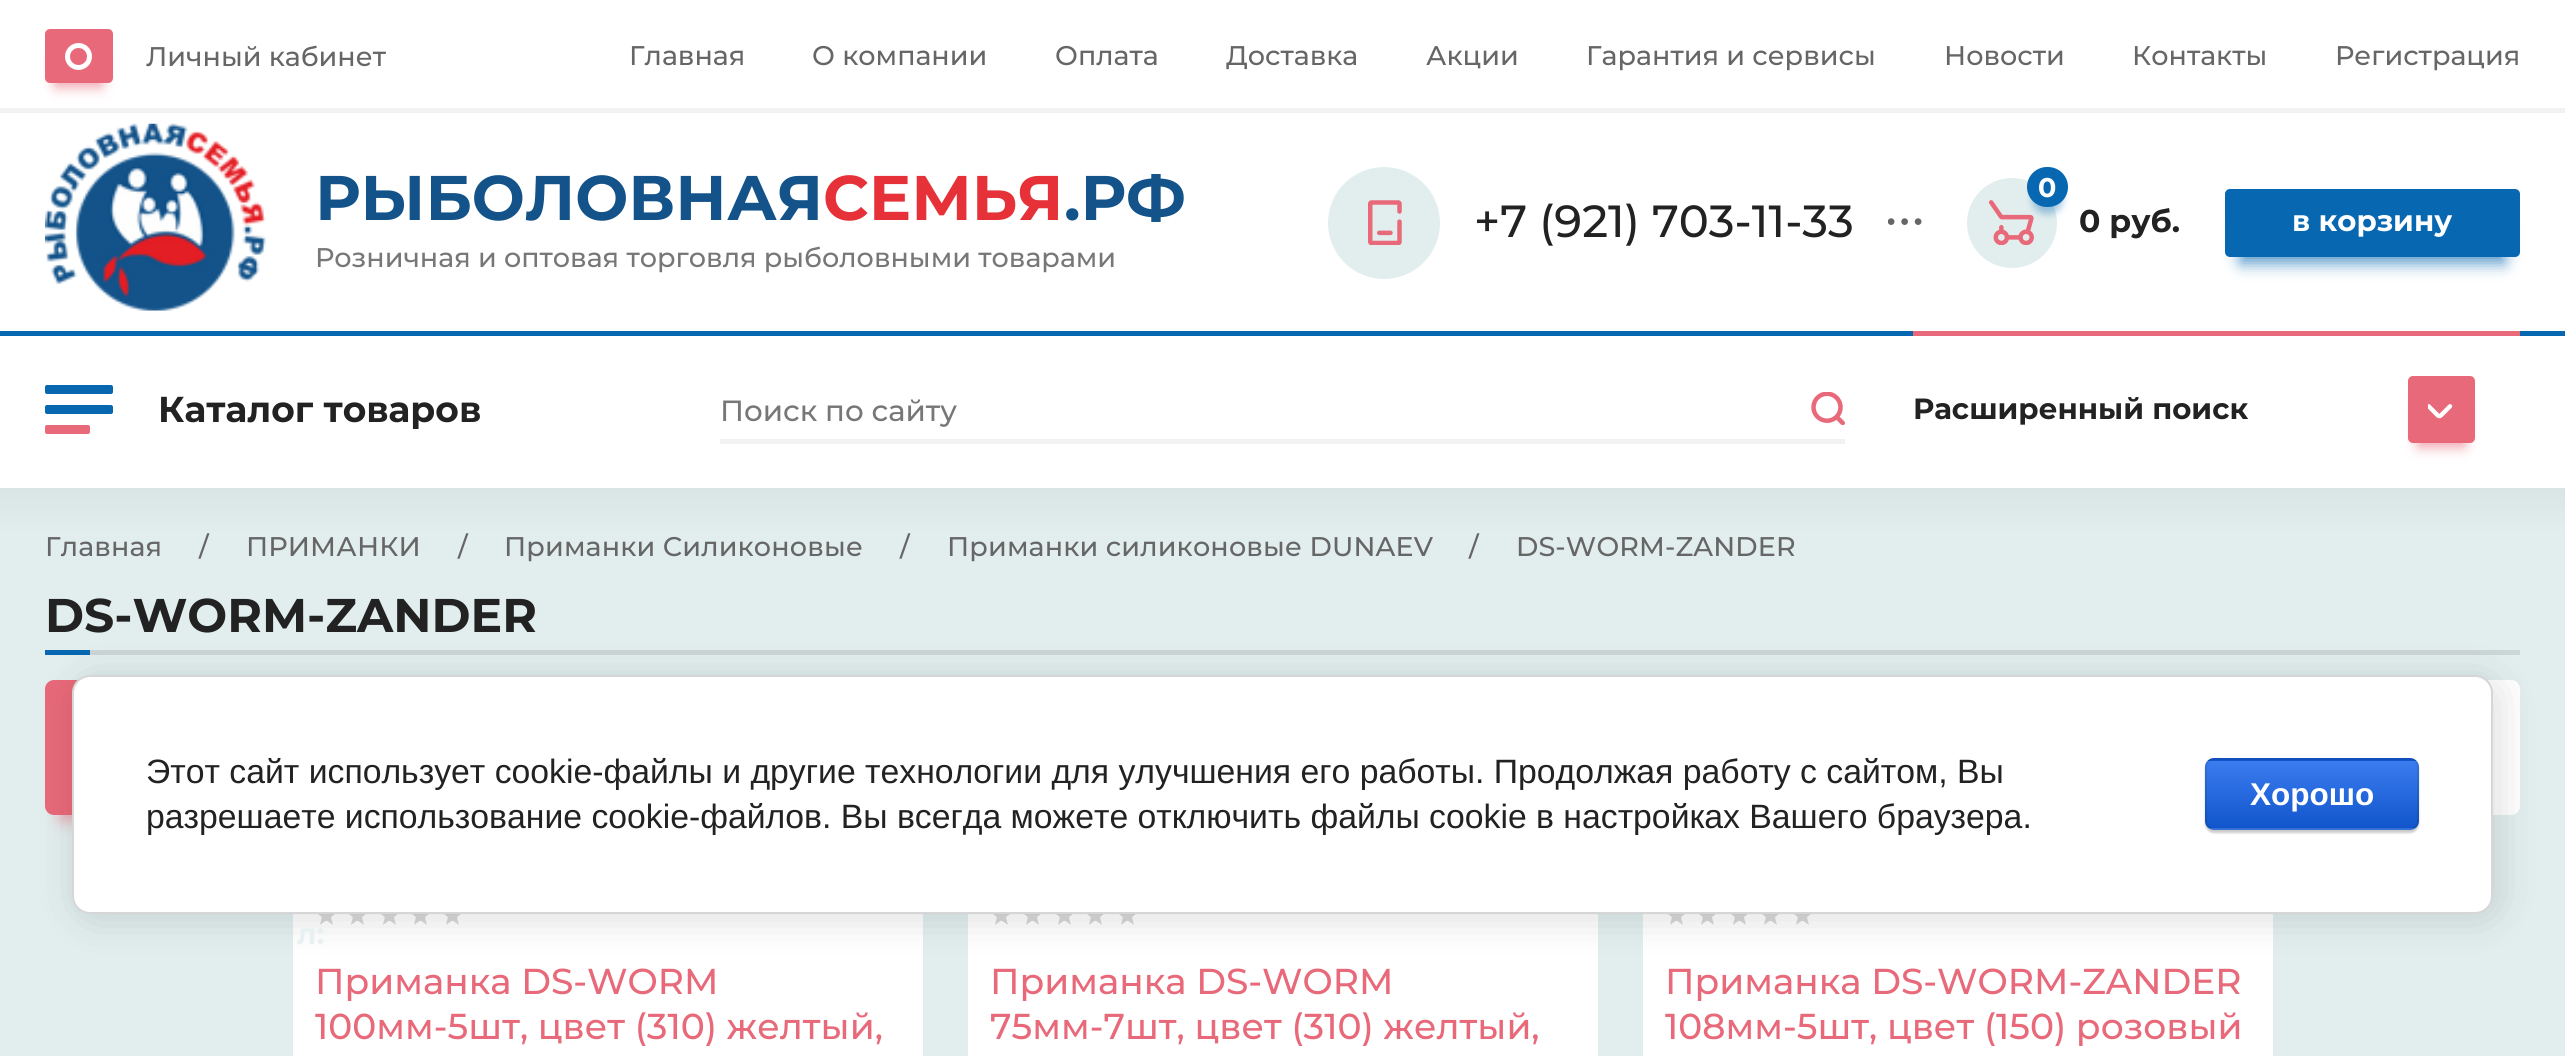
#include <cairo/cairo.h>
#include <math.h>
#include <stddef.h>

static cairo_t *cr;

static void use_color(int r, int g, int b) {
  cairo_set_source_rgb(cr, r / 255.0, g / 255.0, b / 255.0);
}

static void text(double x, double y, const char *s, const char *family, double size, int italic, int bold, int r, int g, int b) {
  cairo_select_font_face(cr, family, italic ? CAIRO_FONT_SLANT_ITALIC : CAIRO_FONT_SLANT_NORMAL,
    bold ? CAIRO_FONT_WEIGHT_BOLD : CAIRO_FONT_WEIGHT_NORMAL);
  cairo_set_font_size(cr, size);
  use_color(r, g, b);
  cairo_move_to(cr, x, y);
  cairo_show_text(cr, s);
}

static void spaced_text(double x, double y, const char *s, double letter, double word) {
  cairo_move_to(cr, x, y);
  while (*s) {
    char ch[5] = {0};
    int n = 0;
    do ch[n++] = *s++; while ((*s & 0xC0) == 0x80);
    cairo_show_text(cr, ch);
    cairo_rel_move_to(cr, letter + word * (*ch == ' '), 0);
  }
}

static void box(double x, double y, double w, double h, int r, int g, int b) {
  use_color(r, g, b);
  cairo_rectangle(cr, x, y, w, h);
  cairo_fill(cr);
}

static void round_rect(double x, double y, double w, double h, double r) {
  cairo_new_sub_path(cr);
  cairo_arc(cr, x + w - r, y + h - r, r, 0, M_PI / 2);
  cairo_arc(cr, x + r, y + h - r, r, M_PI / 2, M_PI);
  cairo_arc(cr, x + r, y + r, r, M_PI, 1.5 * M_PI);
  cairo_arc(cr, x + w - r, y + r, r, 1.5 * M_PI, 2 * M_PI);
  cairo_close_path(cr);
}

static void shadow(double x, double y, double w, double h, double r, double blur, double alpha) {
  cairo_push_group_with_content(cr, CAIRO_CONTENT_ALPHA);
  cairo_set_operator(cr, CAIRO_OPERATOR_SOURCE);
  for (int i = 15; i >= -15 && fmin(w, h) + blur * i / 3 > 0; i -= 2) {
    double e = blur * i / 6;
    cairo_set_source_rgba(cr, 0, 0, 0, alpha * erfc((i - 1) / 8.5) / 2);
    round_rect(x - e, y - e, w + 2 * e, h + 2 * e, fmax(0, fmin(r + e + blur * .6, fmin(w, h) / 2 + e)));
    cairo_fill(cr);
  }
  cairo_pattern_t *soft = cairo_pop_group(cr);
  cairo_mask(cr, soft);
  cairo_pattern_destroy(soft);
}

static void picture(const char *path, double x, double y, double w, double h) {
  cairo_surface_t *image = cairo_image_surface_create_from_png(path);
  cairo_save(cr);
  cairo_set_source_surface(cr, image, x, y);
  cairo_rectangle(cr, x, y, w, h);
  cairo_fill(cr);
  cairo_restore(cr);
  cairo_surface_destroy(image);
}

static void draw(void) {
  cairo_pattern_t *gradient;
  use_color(255, 255, 255);
  cairo_paint(cr);
  box(0, 108, 2565, 5, 242, 242, 242);
  use_color(232, 105, 121);
  shadow(56, 54, 45, 32, 0, 7, 0.7);
  use_color(232, 105, 121);
  round_rect(45, 29, 68, 54, 5);
  cairo_fill(cr);
  cairo_arc(cr, 78.5, 56.5, 11, 0, 2 * M_PI);
  use_color(255, 255, 255);
  cairo_set_line_width(cr, 5);
  cairo_stroke(cr);
  picture("img_01.png", 45, 123, 221, 188);
  use_color(226, 238, 238);
  cairo_arc(cr, 1384, 223, 56, 0, 2 * M_PI);
  cairo_fill(cr);
  picture("img_02.png", 1368, 200, 34, 45);
  picture("img_03.png", 1888, 218, 34, 7);
  cairo_arc(cr, 2012, 223, 45, 0, 2 * M_PI);
  cairo_fill(cr);
  picture("img_04.png", 1989, 200, 45, 45);
  use_color(7, 104, 177);
  shadow(2032, 182, 31, 32, 15.5, 3.5, 0.35);
  use_color(7, 104, 177);
  round_rect(2027, 167, 41, 40, 20);
  cairo_fill(cr);
  use_color(7, 104, 177);
  shadow(2241, 227, 263, 36, 0, 8, 0.7);
  use_color(7, 104, 177);
  round_rect(2225, 189, 295, 68, 5);
  cairo_fill(cr);
  box(0, 331, 2565, 5, 7, 104, 177);
  round_rect(45, 405, 68, 9, 2);
  cairo_fill(cr);
  round_rect(45, 385, 68, 9, 2);
  cairo_fill(cr);
  use_color(232, 105, 121);
  round_rect(45, 425, 45, 9, 2);
  cairo_fill(cr);
  box(1913, 331, 607, 5, 232, 105, 121);
  use_color(232, 105, 121);
  shadow(2419, 401, 45, 45, 0, 7, 0.7);
  use_color(232, 105, 121);
  round_rect(2408, 376, 67, 67, 5);
  cairo_fill(cr);
  picture("img_05.png", 2428, 404, 25, 15);
  box(720, 439, 1125, 5, 242, 242, 242);
  picture("img_06.png", 1811, 392, 34, 33);
  box(0, 533, 2565, 523, 226, 238, 238);
  gradient = cairo_pattern_create_linear(1283, 533, 1283, 488);
  cairo_pattern_add_color_stop_rgba(gradient, 0, 0.886, 0.933, 0.933, 1);
  cairo_pattern_add_color_stop_rgba(gradient, 1, 0.851, 0.894, 0.894, 1);
  cairo_set_source(cr, gradient);
  cairo_pattern_destroy(gradient);
  cairo_rectangle(cr, 0, 488, 2565, 45);
  cairo_fill(cr);
  box(90, 650, 2430, 5, 203, 214, 214);
  box(45, 650, 45, 5, 7, 104, 177);
  use_color(232, 105, 121);
  shadow(61, 718, 598, 103, 0, 8, 0.52);
  use_color(232, 105, 121);
  round_rect(45, 680, 630, 135, 9);
  cairo_fill(cr);
  use_color(255, 255, 255);
  round_rect(720, 680, 1800, 135, 9);
  cairo_fill(cr);
  box(293, 914, 630, 142, 255, 255, 255);
  picture("img_07.png", 318, 914, 143, 11);
  box(968, 914, 630, 142, 255, 255, 255);
  picture("img_07.png", 993, 914, 143, 11);
  box(1643, 914, 630, 142, 255, 255, 255);
  picture("img_07.png", 1668, 914, 143, 11);
  use_color(0, 0, 0);
  shadow(77, 680, 2421, 238, 18, 20, 0.14);
  use_color(255, 255, 255);
  round_rect(73, 676, 2419, 237, 17);
  cairo_fill_preserve(cr);
  use_color(214, 214, 214);
  cairo_set_line_width(cr, 2);
  cairo_stroke(cr);
  use_color(0, 0, 0);
  shadow(2205, 761, 214, 72, 9, 1, 0.2);
  cairo_save(cr);
  round_rect(2205, 758, 214, 72, 9);
  cairo_clip(cr);
  gradient = cairo_pattern_create_linear(2312, 693, 2312, 761);
  cairo_pattern_add_color_stop_rgba(gradient, 0, 0.231, 0.486, 0.937, 1);
  cairo_pattern_add_color_stop_rgba(gradient, 1, 0.067, 0.333, 0.8, 1);
  cairo_set_source(cr, gradient);
  cairo_pattern_destroy(gradient);
  cairo_rectangle(cr, 2205, 758, 214, 3);
  cairo_fill(cr);
  gradient = cairo_pattern_create_linear(2312, 761, 2312, 828);
  cairo_pattern_add_color_stop_rgba(gradient, 0, 0.231, 0.486, 0.937, 1);
  cairo_pattern_add_color_stop_rgba(gradient, 1, 0.067, 0.333, 0.8, 1);
  cairo_set_source(cr, gradient);
  cairo_pattern_destroy(gradient);
  cairo_rectangle(cr, 2205, 761, 214, 67);
  cairo_fill(cr);
  gradient = cairo_pattern_create_linear(2312, 828, 2312, 896);
  cairo_pattern_add_color_stop_rgba(gradient, 0, 0.231, 0.486, 0.937, 1);
  cairo_pattern_add_color_stop_rgba(gradient, 1, 0.067, 0.333, 0.8, 1);
  cairo_set_source(cr, gradient);
  cairo_pattern_destroy(gradient);
  cairo_rectangle(cr, 2205, 828, 214, 2);
  cairo_fill(cr);
  cairo_restore(cr);
  round_rect(2206, 759, 212, 70, 8);
  cairo_set_source_rgba(cr, 0, 0, 0, 0.1);
  cairo_stroke(cr);
  text(146, 66, "Личный кабинет", "Montserrat Medium", 27, 0, 0, 102, 102, 102);
  text(629, 65, "Главная", "Montserrat Medium", 27, 0, 0, 102, 102, 102);
  text(812, 65, "О компании", "Montserrat Medium", 27, 0, 0, 102, 102, 102);
  text(1055, 65, "Оплата", "Montserrat Medium", 27, 0, 0, 102, 102, 102);
  text(1226, 65, "Доставка", "Montserrat Medium", 27, 0, 0, 102, 102, 102);
  text(1426, 65, "Акции", "Montserrat Medium", 27, 0, 0, 102, 102, 102);
  text(1586, 65, "Гарантия и сервисы", "Montserrat Medium", 27, 0, 0, 102, 102, 102);
  text(1944, 65, "Новости", "Montserrat Medium", 27, 0, 0, 102, 102, 102);
  text(2132, 65, "Контакты", "Montserrat Medium", 27, 0, 0, 102, 102, 102);
  text(2335, 65, "Регистрация", "Montserrat Medium", 27, 0, 0, 102, 102, 102);
  text(315, 220, "РЫБОЛОВНАЯ", "Montserrat", 63, 0, 1, 19, 83, 138);
  text(823, 220, "СЕМЬЯ", "Montserrat", 63, 0, 1, 229, 49, 55);
  text(1064, 220, ".РФ", "Montserrat", 63, 0, 1, 19, 83, 138);
  text(315, 267, "Розничная и оптовая торговля рыболовными товарами", "Montserrat Medium", 27, 0, 0, 119, 119, 119);
  text(1474, 237, "+7 (921) 703-11-33", "Montserrat Medium", 45, 0, 0, 34, 34, 34);
  text(2038, 197, "0", "Montserrat", 27, 0, 1, 255, 255, 255);
  text(2079, 232, "0 руб.", "Montserrat", 31.5, 0, 1, 34, 34, 34);
  text(2292, 231, "в корзину", "Montserrat", 29.25, 0, 1, 255, 255, 255);
  text(158, 422, "Каталог товаров", "Montserrat", 36, 0, 1, 34, 34, 34);
  text(1913, 419, "Расширенный поиск", "Montserrat", 29.25, 0, 1, 34, 34, 34);
  text(297, 944, "л:", "Montserrat", 29.25, 0, 1, 232, 241, 241);
  text(720, 421, "Поиск по сайту", "Montserrat Medium", 29.25, 0, 0, 119, 119, 119);
  cairo_set_font_size(cr, 27);
  use_color(102, 102, 102);
  spaced_text(45, 556, "Главная", 0.15, 0);
  spaced_text(199, 556, "/", 0.15, 0);
  spaced_text(246, 556, "ПРИМАНКИ", 0.15, 0);
  spaced_text(458, 556, "/", 0.15, 0);
  spaced_text(504, 556, "Приманки Силиконовые", 0.15, 0);
  spaced_text(900, 556, "/", 0.15, 0);
  spaced_text(947, 556, "Приманки силиконовые DUNAEV", 0.15, 0);
  spaced_text(1469, 556, "/", 0.15, 0);
  spaced_text(1516, 556, "DS-WORM-ZANDER", 0.15, 0);
  text(45, 632, "DS-WORM-ZANDER", "Montserrat", 47.25, 0, 1, 34, 34, 34);
  text(315, 994, "Приманка DS-WORM", "Montserrat Medium", 36, 0, 0, 232, 105, 121);
  text(315, 1039, "100мм-5шт, цвет (310) желтый,", "Montserrat Medium", 36, 0, 0, 232, 105, 121);
  text(990, 994, "Приманка DS-WORM", "Montserrat Medium", 36, 0, 0, 232, 105, 121);
  text(990, 1039, "75мм-7шт, цвет (310) желтый,", "Montserrat Medium", 36, 0, 0, 232, 105, 121);
  text(1665, 994, "Приманка DS-WORM-ZANDER", "Montserrat Medium", 36, 0, 0, 232, 105, 121);
  text(1665, 1039, "108мм-5шт, цвет (150) розовый", "Montserrat Medium", 36, 0, 0, 232, 105, 121);
  text(146, 783, "Этот сайт использует cookie-файлы и другие технологии для улучшения его работы. Продолжая работу с сайтом, Вы", "Liberation Sans", 33.75, 0, 0, 34, 34, 34);
  text(146, 828, "разрешаете использование cookie-файлов. Вы всегда можете отключить файлы cookie в настройках Вашего браузера.", "Liberation Sans", 33.75, 0, 0, 34, 34, 34);
  text(2250, 805, "Хорошо", "Liberation Sans", 31.5, 0, 1, 255, 255, 255);
}

int main(void) {
  cairo_surface_t *surface = cairo_image_surface_create(CAIRO_FORMAT_RGB24, 2565, 1056);
  cr = cairo_create(surface);
  cairo_font_options_t *options = cairo_font_options_create();
  cairo_font_options_set_hint_metrics(options, CAIRO_HINT_METRICS_OFF);
  cairo_font_options_set_hint_style(options, CAIRO_HINT_STYLE_NONE);
  cairo_set_font_options(cr, options);
  cairo_set_miter_limit(cr, 4);
  draw();
  cairo_surface_write_to_png(surface, "out.png");
  cairo_font_options_destroy(options);
  cairo_destroy(cr);
  cairo_surface_destroy(surface);
  return 0;
}
